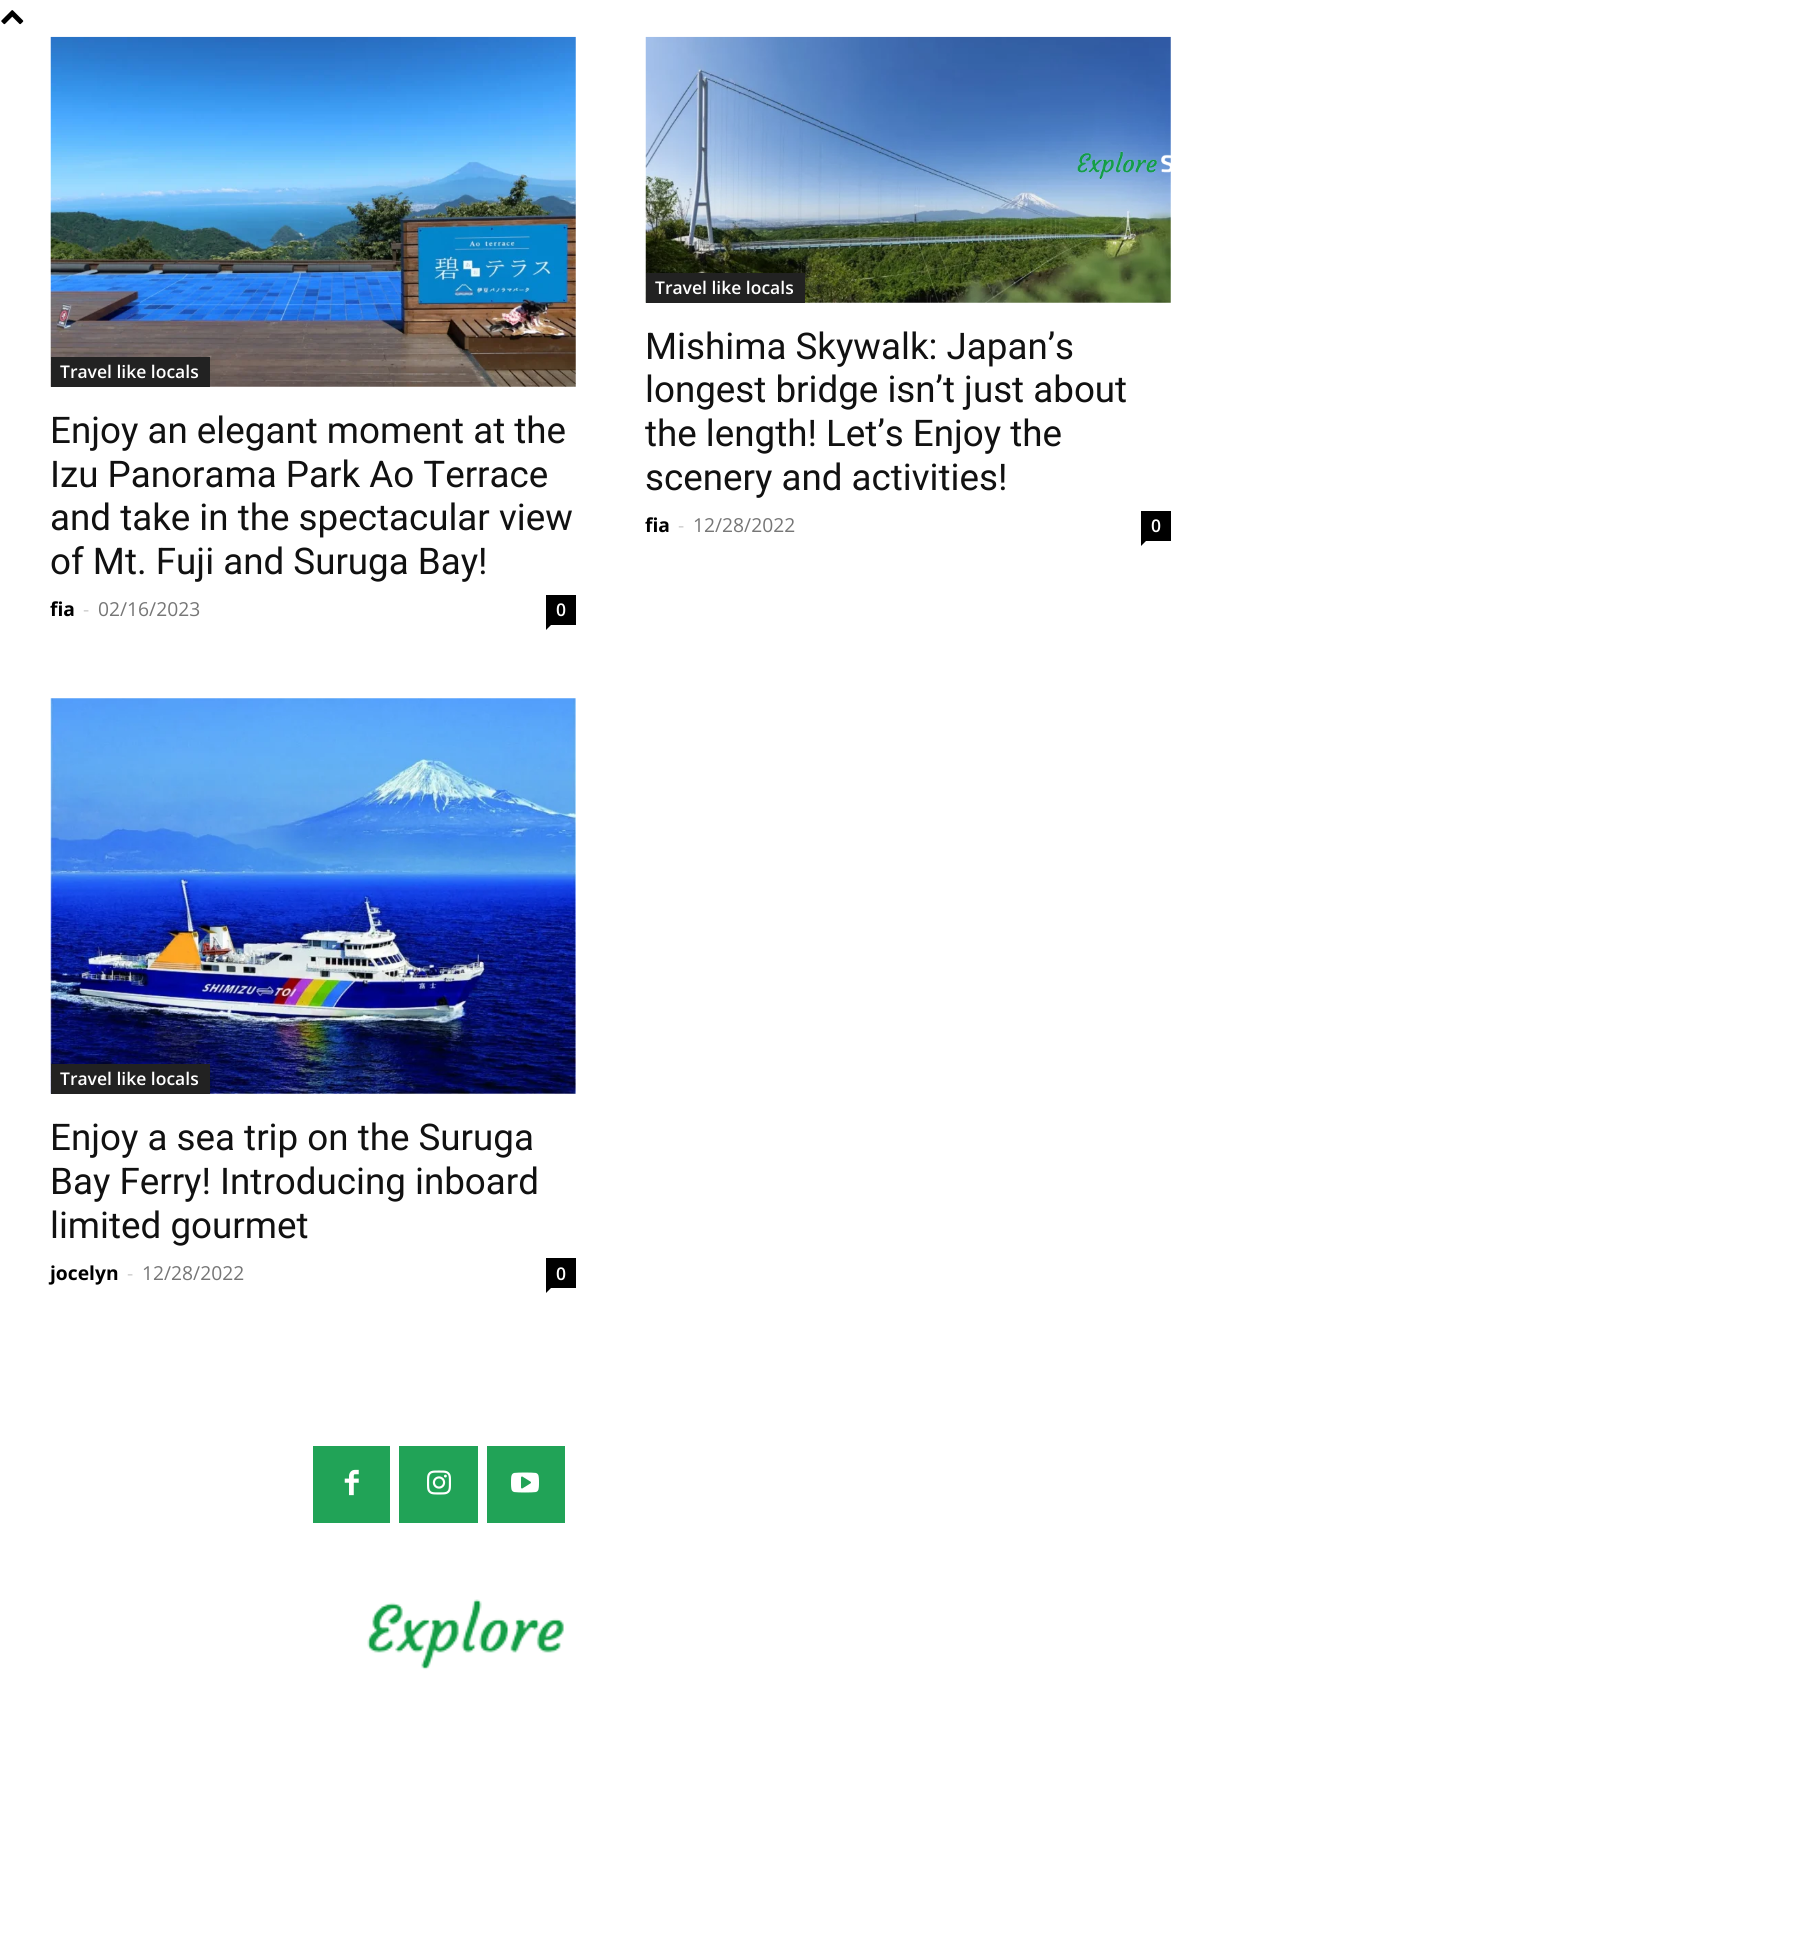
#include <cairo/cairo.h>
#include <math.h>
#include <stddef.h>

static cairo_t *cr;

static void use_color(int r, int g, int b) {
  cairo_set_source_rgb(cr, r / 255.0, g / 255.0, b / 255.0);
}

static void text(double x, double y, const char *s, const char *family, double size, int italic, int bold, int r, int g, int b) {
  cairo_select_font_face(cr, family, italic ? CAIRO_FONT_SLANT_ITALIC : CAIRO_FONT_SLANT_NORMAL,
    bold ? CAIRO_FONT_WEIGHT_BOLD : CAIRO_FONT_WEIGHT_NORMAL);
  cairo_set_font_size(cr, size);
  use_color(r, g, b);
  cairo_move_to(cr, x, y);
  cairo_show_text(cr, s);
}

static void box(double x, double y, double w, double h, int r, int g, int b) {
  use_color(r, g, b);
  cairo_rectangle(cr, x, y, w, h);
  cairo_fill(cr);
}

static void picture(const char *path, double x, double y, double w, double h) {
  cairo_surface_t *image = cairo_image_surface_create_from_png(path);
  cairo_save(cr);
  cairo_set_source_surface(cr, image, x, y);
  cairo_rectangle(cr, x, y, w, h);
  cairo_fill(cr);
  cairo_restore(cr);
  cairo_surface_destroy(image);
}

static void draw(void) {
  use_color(255, 255, 255);
  cairo_paint(cr);
  picture("img_01.png", 1, 10, 23, 15);
  picture("img_04.png", 645, 36, 526, 267);
  picture("img_02.png", 1077, 151, 94, 29);
  picture("img_03.png", 50, 36, 526, 351);
  box(51, 357, 159, 30, 34, 34, 34);
  box(546, 595, 30, 30, 0, 0, 0);
  cairo_new_path(cr);
  cairo_move_to(cr, 546, 625);
  cairo_line_to(cr, 551, 625);
  cairo_line_to(cr, 546, 630);
  cairo_close_path(cr);
  cairo_fill(cr);
  box(646, 273, 159, 30, 34, 34, 34);
  box(1141, 511, 30, 30, 0, 0, 0);
  cairo_new_path(cr);
  cairo_move_to(cr, 1141, 541);
  cairo_line_to(cr, 1146, 541);
  cairo_line_to(cr, 1141, 546);
  cairo_close_path(cr);
  cairo_fill(cr);
  picture("img_05.png", 50, 698, 526, 396);
  box(51, 1064, 159, 30, 34, 34, 34);
  box(546, 1258, 30, 30, 0, 0, 0);
  cairo_new_path(cr);
  cairo_move_to(cr, 546, 1288);
  cairo_line_to(cr, 551, 1288);
  cairo_line_to(cr, 546, 1293);
  cairo_close_path(cr);
  cairo_fill(cr);
  box(313, 1446, 77, 77, 33, 163, 87);
  picture("img_06.png", 344, 1469, 15, 27);
  box(399, 1446, 79, 77, 33, 163, 87);
  picture("img_07.png", 427, 1470, 24, 25);
  box(487, 1446, 78, 77, 33, 163, 87);
  picture("img_08.png", 511, 1472, 28, 21);
  picture("img_09.png", 367, 1599, 197, 71);
  text(60, 378, "Travel like locals", "Open Sans SemiBold", 17.5, 0, 0, 255, 255, 255);
  text(50, 443, "Enjoy an elegant moment at the", "Roboto", 36.75, 0, 0, 17, 17, 17);
  text(50, 487, "Izu Panorama Park Ao Terrace", "Roboto", 36.75, 0, 0, 17, 17, 17);
  text(50, 530, "and take in the spectacular view", "Roboto", 36.75, 0, 0, 17, 17, 17);
  text(50, 574, "of Mt. Fuji and Suruga Bay!", "Roboto", 36.75, 0, 0, 17, 17, 17);
  text(50, 616, "fia", "Open Sans", 19.25, 0, 1, 0, 0, 0);
  text(83, 616, "-", "Open Sans", 19.25, 0, 0, 204, 204, 204);
  text(98, 616, "02/16/2023", "Open Sans", 19.25, 0, 0, 118, 118, 118);
  text(556, 616, "0", "Open Sans SemiBold", 17.5, 0, 0, 255, 255, 255);
  text(655, 294, "Travel like locals", "Open Sans SemiBold", 17.5, 0, 0, 255, 255, 255);
  text(645, 359, "Mishima Skywalk: Japan’s", "Roboto", 36.75, 0, 0, 17, 17, 17);
  text(645, 402, "longest bridge isn’t just about", "Roboto", 36.75, 0, 0, 17, 17, 17);
  text(645, 446, "the length! Let’s Enjoy the", "Roboto", 36.75, 0, 0, 17, 17, 17);
  text(645, 490, "scenery and activities!", "Roboto", 36.75, 0, 0, 17, 17, 17);
  text(645, 532, "fia", "Open Sans", 19.25, 0, 1, 0, 0, 0);
  text(678, 532, "-", "Open Sans", 19.25, 0, 0, 204, 204, 204);
  text(693, 532, "12/28/2022", "Open Sans", 19.25, 0, 0, 118, 118, 118);
  text(1151, 532, "0", "Open Sans SemiBold", 17.5, 0, 0, 255, 255, 255);
  text(60, 1085, "Travel like locals", "Open Sans SemiBold", 17.5, 0, 0, 255, 255, 255);
  text(50, 1150, "Enjoy a sea trip on the Suruga", "Roboto", 36.75, 0, 0, 17, 17, 17);
  text(50, 1194, "Bay Ferry! Introducing inboard", "Roboto", 36.75, 0, 0, 17, 17, 17);
  text(50, 1238, "limited gourmet", "Roboto", 36.75, 0, 0, 17, 17, 17);
  text(50, 1280, "jocelyn", "Open Sans", 19.25, 0, 1, 0, 0, 0);
  text(127, 1280, "-", "Open Sans", 19.25, 0, 0, 204, 204, 204);
  text(142, 1280, "12/28/2022", "Open Sans", 19.25, 0, 0, 118, 118, 118);
  text(556, 1280, "0", "Open Sans SemiBold", 17.5, 0, 0, 255, 255, 255);
}

int main(void) {
  cairo_surface_t *surface = cairo_image_surface_create(CAIRO_FORMAT_RGB24, 1814, 1953);
  cr = cairo_create(surface);
  cairo_font_options_t *options = cairo_font_options_create();
  cairo_font_options_set_hint_metrics(options, CAIRO_HINT_METRICS_OFF);
  cairo_font_options_set_hint_style(options, CAIRO_HINT_STYLE_NONE);
  cairo_set_font_options(cr, options);
  cairo_set_miter_limit(cr, 4);
  draw();
  cairo_surface_write_to_png(surface, "out.png");
  cairo_font_options_destroy(options);
  cairo_destroy(cr);
  cairo_surface_destroy(surface);
  return 0;
}
